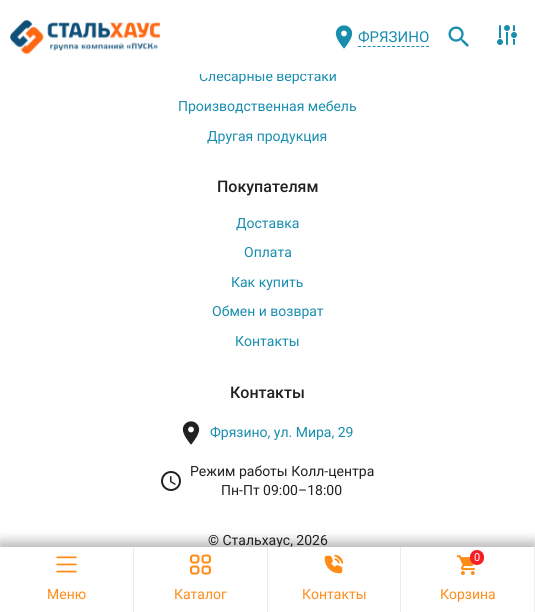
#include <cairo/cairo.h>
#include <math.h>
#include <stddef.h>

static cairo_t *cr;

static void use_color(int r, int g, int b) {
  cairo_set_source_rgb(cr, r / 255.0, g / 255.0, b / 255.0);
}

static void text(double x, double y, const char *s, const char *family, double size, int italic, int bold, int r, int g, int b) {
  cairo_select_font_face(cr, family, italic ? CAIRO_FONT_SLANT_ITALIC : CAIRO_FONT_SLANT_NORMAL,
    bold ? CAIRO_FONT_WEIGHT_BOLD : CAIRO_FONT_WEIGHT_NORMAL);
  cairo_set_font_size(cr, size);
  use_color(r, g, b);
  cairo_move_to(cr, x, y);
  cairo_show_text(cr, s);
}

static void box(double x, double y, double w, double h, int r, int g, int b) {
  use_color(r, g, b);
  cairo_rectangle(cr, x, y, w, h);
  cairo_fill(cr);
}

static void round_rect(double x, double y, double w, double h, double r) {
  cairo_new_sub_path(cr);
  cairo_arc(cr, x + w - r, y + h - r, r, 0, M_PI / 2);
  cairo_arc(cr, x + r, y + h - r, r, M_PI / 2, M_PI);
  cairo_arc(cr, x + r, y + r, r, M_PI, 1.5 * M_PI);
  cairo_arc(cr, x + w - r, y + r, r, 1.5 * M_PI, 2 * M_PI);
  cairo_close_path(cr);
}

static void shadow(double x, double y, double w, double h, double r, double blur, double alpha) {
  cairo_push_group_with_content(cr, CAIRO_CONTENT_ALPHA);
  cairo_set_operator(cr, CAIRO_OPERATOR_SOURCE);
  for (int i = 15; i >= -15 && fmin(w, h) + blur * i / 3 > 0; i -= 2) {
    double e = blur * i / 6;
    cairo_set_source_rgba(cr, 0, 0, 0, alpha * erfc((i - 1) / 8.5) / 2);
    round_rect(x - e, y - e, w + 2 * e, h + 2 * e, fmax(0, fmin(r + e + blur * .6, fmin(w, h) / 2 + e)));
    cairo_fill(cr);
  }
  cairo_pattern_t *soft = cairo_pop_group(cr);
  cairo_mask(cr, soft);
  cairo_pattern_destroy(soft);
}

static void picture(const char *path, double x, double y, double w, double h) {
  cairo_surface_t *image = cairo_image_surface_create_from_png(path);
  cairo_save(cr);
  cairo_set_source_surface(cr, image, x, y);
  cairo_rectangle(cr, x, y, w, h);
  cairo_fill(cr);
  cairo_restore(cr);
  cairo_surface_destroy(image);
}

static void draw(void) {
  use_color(255, 255, 255);
  cairo_paint(cr);
  picture("img_01.png", 10, 20, 150, 34);
  picture("img_02.png", 335, 25, 18, 24);
  cairo_new_path(cr);
  cairo_move_to(cr, 358, 46.5);
  cairo_line_to(cr, 429, 46.5);
  use_color(24, 141, 174);
  cairo_set_line_width(cr, 1);
  cairo_set_dash(cr, (double[]){3, 1.86}, 2, 0);
  cairo_stroke(cr);
  picture("img_03.png", 448, 26, 21, 21);
  picture("img_04.png", 497, 25, 20, 20);
  picture("img_05.png", 182, 421, 18, 24);
  picture("img_06.png", 161, 471, 20, 20);
  use_color(0, 0, 0);
  shadow(0, 543, 535, 65, 0, 7.5, 0.15);
  shadow(0, 542, 535, 65, 0, 5.5, 0.18);
  box(534, 547, 1, 65, 235, 235, 235);
  text(358, 42, "ФРЯЗИНО", "Roboto", 15, 0, 0, 24, 141, 174);
  text(199, 81, "Слесарные верстаки", "Roboto", 14, 0, 0, 24, 141, 174);
  box(199, 70, 137, 4, 255, 255, 255);
  text(178, 111, "Производственная мебель", "Roboto", 14, 0, 0, 24, 141, 174);
  text(207, 141, "Другая продукция", "Roboto", 14, 0, 0, 24, 141, 174);
  text(217, 192, "Покупателям", "Roboto Medium", 16, 0, 0, 33, 33, 33);
  text(236, 228, "Доставка", "Roboto", 14, 0, 0, 24, 141, 174);
  text(244, 257, "Оплата", "Roboto", 14, 0, 0, 24, 141, 174);
  text(231, 287, "Как купить", "Roboto", 14, 0, 0, 24, 141, 174);
  text(212, 316, "Обмен и возврат", "Roboto", 14, 0, 0, 24, 141, 174);
  text(235, 346, "Контакты", "Roboto", 14, 0, 0, 24, 141, 174);
  text(230, 398, "Контакты", "Roboto Medium", 16, 0, 0, 33, 33, 33);
  text(210, 437, "Фрязино, ул. Мира, 29", "Roboto", 14, 0, 0, 24, 141, 174);
  text(190, 476, "Режим работы Колл-центра", "Roboto", 14, 0, 0, 33, 33, 33);
  text(221, 495, "Пн-Пт 09:00–18:00", "Roboto", 14, 0, 0, 33, 33, 33);
  text(208, 545, "© Стальхаус, 2026", "Roboto", 14, 0, 0, 33, 33, 33);
  box(0, 547, 534, 65, 255, 255, 255);
  picture("img_07.png", 56, 556, 21, 17);
  text(47, 599, "Меню", "Roboto", 14, 0, 0, 255, 140, 24);
  box(267, 547, 1, 65, 235, 235, 235);
  box(133, 547, 1, 65, 235, 235, 235);
  picture("img_08.png", 190, 554, 21, 21);
  text(174, 599, "Каталог", "Roboto", 14, 0, 0, 255, 140, 24);
  picture("img_09.png", 324, 554, 20, 20);
  text(302, 599, "Контакты", "Roboto", 14, 0, 0, 255, 140, 24);
  box(400, 547, 1, 65, 235, 235, 235);
  picture("img_10.png", 456, 555, 19, 20);
  use_color(246, 30, 32);
  round_rect(470, 550, 14, 15, 7);
  cairo_fill(cr);
  text(474, 561, "0", "Roboto", 11, 0, 0, 255, 255, 255);
  text(440, 599, "Корзина", "Roboto", 14, 0, 0, 255, 140, 24);
}

int main(void) {
  cairo_surface_t *surface = cairo_image_surface_create(CAIRO_FORMAT_RGB24, 535, 612);
  cr = cairo_create(surface);
  cairo_font_options_t *options = cairo_font_options_create();
  cairo_font_options_set_hint_metrics(options, CAIRO_HINT_METRICS_OFF);
  cairo_font_options_set_hint_style(options, CAIRO_HINT_STYLE_NONE);
  cairo_set_font_options(cr, options);
  cairo_set_miter_limit(cr, 4);
  draw();
  cairo_surface_write_to_png(surface, "out.png");
  cairo_font_options_destroy(options);
  cairo_destroy(cr);
  cairo_surface_destroy(surface);
  return 0;
}
